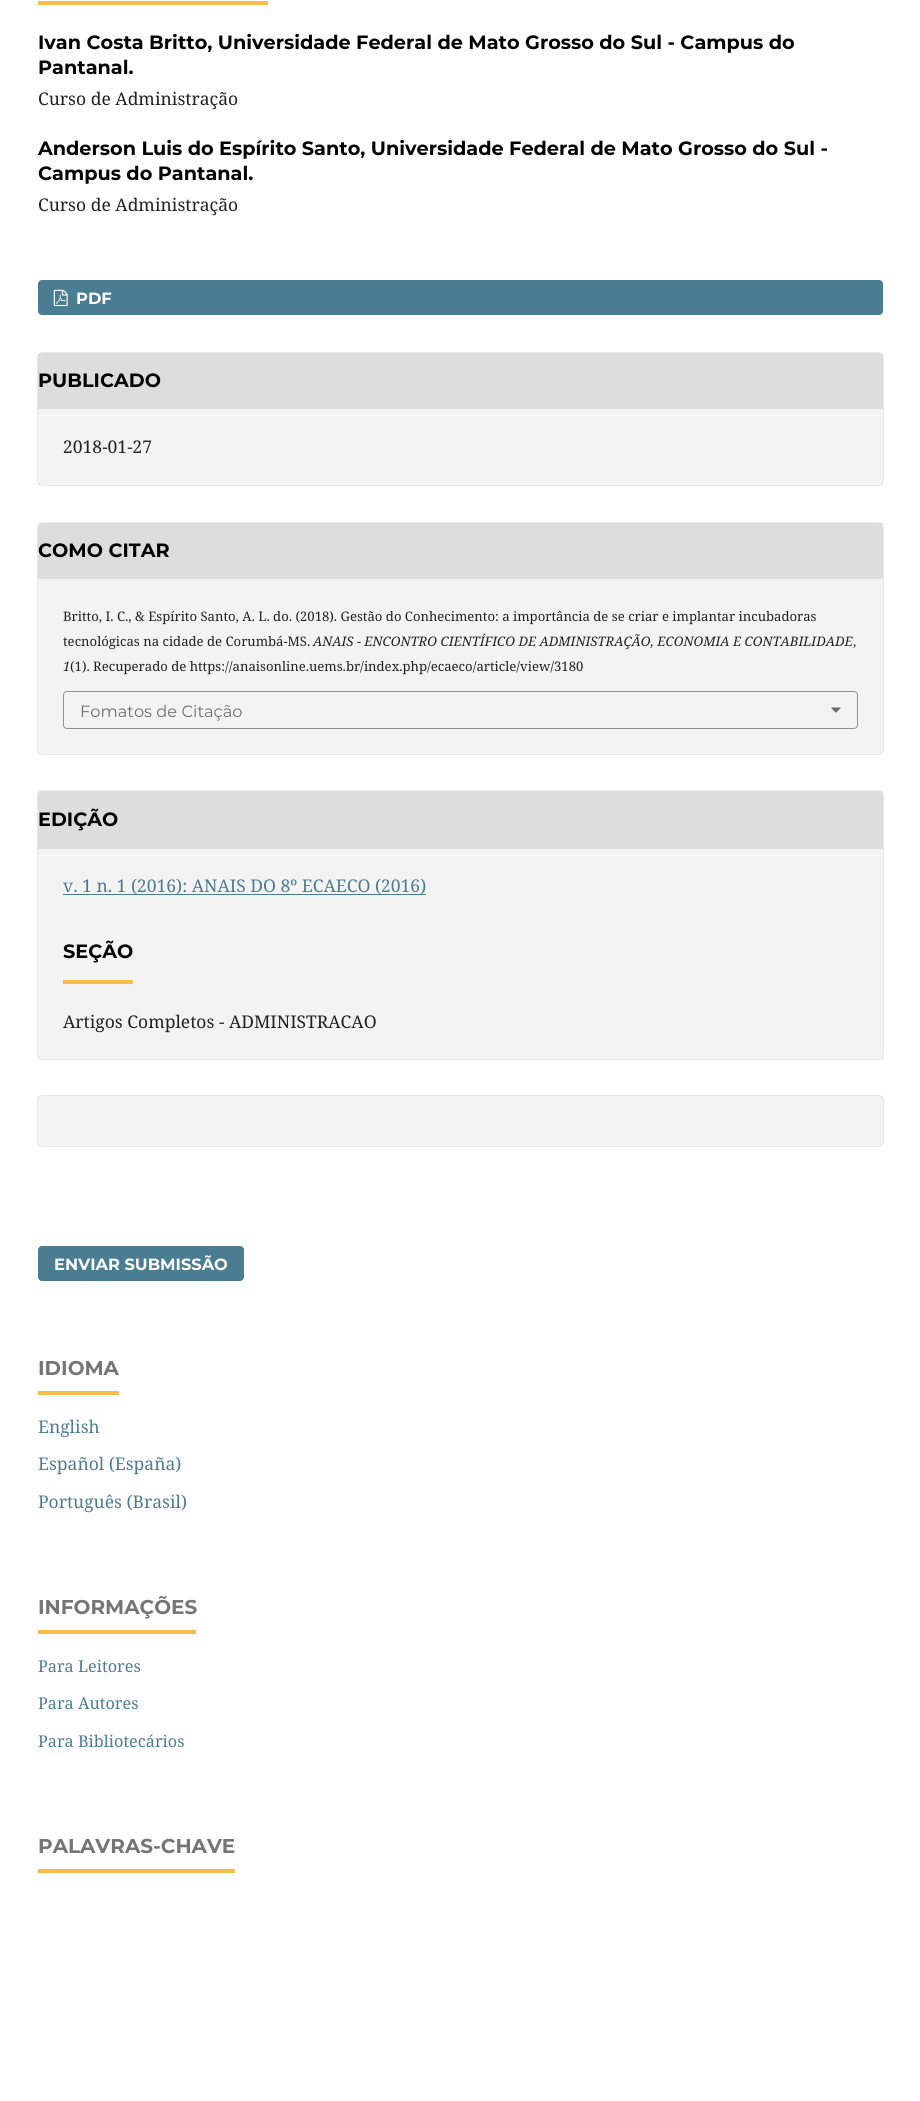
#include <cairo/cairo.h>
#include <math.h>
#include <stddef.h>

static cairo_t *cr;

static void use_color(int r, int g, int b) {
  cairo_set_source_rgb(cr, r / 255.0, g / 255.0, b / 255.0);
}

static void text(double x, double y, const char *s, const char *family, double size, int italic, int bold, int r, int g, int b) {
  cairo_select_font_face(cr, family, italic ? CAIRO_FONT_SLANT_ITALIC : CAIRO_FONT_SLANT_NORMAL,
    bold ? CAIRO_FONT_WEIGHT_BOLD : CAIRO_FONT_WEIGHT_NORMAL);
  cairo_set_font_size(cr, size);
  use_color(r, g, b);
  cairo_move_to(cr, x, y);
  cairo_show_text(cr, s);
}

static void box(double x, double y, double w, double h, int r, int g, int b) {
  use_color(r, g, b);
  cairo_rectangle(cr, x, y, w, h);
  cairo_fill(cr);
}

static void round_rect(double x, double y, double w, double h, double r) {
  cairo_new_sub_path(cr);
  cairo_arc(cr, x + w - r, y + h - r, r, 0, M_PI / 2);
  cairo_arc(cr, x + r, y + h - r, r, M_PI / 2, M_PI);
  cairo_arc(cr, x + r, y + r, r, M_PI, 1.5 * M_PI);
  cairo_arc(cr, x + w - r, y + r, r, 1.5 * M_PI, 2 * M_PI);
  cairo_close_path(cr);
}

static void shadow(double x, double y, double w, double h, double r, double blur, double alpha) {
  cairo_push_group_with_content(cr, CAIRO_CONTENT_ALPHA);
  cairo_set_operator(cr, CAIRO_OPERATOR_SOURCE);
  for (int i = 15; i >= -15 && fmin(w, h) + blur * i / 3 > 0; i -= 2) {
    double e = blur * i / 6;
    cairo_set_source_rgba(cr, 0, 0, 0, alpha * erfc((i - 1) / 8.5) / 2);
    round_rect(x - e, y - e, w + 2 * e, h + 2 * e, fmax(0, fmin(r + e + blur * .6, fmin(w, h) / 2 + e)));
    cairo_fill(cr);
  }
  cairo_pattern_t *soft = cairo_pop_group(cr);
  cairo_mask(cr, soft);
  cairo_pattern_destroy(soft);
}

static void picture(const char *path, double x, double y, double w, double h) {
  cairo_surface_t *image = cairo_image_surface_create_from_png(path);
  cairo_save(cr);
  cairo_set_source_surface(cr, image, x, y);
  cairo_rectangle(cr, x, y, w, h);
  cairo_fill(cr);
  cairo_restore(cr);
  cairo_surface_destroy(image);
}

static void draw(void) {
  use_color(255, 255, 255);
  cairo_paint(cr);
  box(38, 1, 230, 4, 247, 188, 74);
  use_color(75, 125, 146);
  round_rect(38, 280, 845, 35, 4);
  cairo_fill(cr);
  picture("img_01.png", 53, 289, 15, 18);
  cairo_save(cr);
  cairo_set_fill_rule(cr, CAIRO_FILL_RULE_EVEN_ODD);
  cairo_new_path(cr);
  cairo_move_to(cr, 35, 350);
  cairo_line_to(cr, 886, 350);
  cairo_line_to(cr, 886, 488);
  cairo_line_to(cr, 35, 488);
  cairo_close_path(cr);
  cairo_move_to(cr, 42, 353);
  cairo_line_to(cr, 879, 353);
  cairo_curve_to(cr, 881, 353, 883, 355, 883, 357);
  cairo_line_to(cr, 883, 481);
  cairo_curve_to(cr, 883, 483, 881, 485, 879, 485);
  cairo_line_to(cr, 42, 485);
  cairo_curve_to(cr, 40, 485, 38, 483, 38, 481);
  cairo_line_to(cr, 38, 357);
  cairo_curve_to(cr, 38, 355, 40, 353, 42, 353);
  cairo_close_path(cr);
  cairo_clip(cr);
  use_color(0, 0, 0);
  shadow(38, 353, 845, 132, 4, 0.5, 0.4);
  cairo_restore(cr);
  cairo_set_source_rgba(cr, 0, 0, 0, 0.05);
  cairo_rectangle(cr, 38, 353, 845, 132);
  cairo_fill(cr);
  use_color(221, 221, 221);
  cairo_new_path(cr);
  cairo_move_to(cr, 42, 353);
  cairo_line_to(cr, 879, 353);
  cairo_curve_to(cr, 881, 353, 883, 355, 883, 357);
  cairo_line_to(cr, 883, 409);
  cairo_line_to(cr, 38, 409);
  cairo_line_to(cr, 38, 357);
  cairo_curve_to(cr, 38, 355, 40, 353, 42, 353);
  cairo_close_path(cr);
  cairo_fill(cr);
  cairo_save(cr);
  cairo_set_fill_rule(cr, CAIRO_FILL_RULE_EVEN_ODD);
  cairo_new_path(cr);
  cairo_move_to(cr, 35, 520);
  cairo_line_to(cr, 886, 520);
  cairo_line_to(cr, 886, 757);
  cairo_line_to(cr, 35, 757);
  cairo_close_path(cr);
  cairo_move_to(cr, 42, 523);
  cairo_line_to(cr, 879, 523);
  cairo_curve_to(cr, 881, 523, 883, 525, 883, 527);
  cairo_line_to(cr, 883, 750);
  cairo_curve_to(cr, 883, 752, 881, 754, 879, 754);
  cairo_line_to(cr, 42, 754);
  cairo_curve_to(cr, 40, 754, 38, 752, 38, 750);
  cairo_line_to(cr, 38, 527);
  cairo_curve_to(cr, 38, 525, 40, 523, 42, 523);
  cairo_close_path(cr);
  cairo_clip(cr);
  use_color(0, 0, 0);
  shadow(38, 523, 845, 231, 4, 0.5, 0.4);
  cairo_restore(cr);
  cairo_set_source_rgba(cr, 0, 0, 0, 0.05);
  cairo_rectangle(cr, 38, 523, 845, 231);
  cairo_fill(cr);
  use_color(221, 221, 221);
  cairo_new_path(cr);
  cairo_move_to(cr, 42, 523);
  cairo_line_to(cr, 879, 523);
  cairo_curve_to(cr, 881, 523, 883, 525, 883, 527);
  cairo_line_to(cr, 883, 579);
  cairo_line_to(cr, 38, 579);
  cairo_line_to(cr, 38, 527);
  cairo_curve_to(cr, 38, 525, 40, 523, 42, 523);
  cairo_close_path(cr);
  cairo_fill(cr);
  round_rect(63.5, 691.5, 794, 37, 3.5);
  use_color(145, 145, 145);
  cairo_set_line_width(cr, 1);
  cairo_stroke(cr);
  picture("img_02.png", 831, 707, 10, 6);
  cairo_save(cr);
  cairo_set_fill_rule(cr, CAIRO_FILL_RULE_EVEN_ODD);
  cairo_new_path(cr);
  cairo_move_to(cr, 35, 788);
  cairo_line_to(cr, 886, 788);
  cairo_line_to(cr, 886, 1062);
  cairo_line_to(cr, 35, 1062);
  cairo_close_path(cr);
  cairo_move_to(cr, 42, 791);
  cairo_line_to(cr, 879, 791);
  cairo_curve_to(cr, 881, 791, 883, 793, 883, 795);
  cairo_line_to(cr, 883, 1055);
  cairo_curve_to(cr, 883, 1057, 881, 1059, 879, 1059);
  cairo_line_to(cr, 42, 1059);
  cairo_curve_to(cr, 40, 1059, 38, 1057, 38, 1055);
  cairo_line_to(cr, 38, 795);
  cairo_curve_to(cr, 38, 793, 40, 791, 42, 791);
  cairo_close_path(cr);
  cairo_clip(cr);
  use_color(0, 0, 0);
  shadow(38, 791, 845, 268, 4, 0.5, 0.4);
  cairo_restore(cr);
  cairo_set_source_rgba(cr, 0, 0, 0, 0.05);
  cairo_rectangle(cr, 38, 791, 845, 268);
  cairo_fill(cr);
  use_color(221, 221, 221);
  cairo_new_path(cr);
  cairo_move_to(cr, 42, 791);
  cairo_line_to(cr, 879, 791);
  cairo_curve_to(cr, 881, 791, 883, 793, 883, 795);
  cairo_line_to(cr, 883, 849);
  cairo_line_to(cr, 38, 849);
  cairo_line_to(cr, 38, 795);
  cairo_curve_to(cr, 38, 793, 40, 791, 42, 791);
  cairo_close_path(cr);
  cairo_fill(cr);
  box(63, 894, 363, 1, 75, 125, 146);
  box(63, 980, 70, 4, 247, 188, 74);
  cairo_save(cr);
  cairo_set_fill_rule(cr, CAIRO_FILL_RULE_EVEN_ODD);
  cairo_new_path(cr);
  cairo_move_to(cr, 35, 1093);
  cairo_line_to(cr, 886, 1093);
  cairo_line_to(cr, 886, 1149);
  cairo_line_to(cr, 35, 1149);
  cairo_close_path(cr);
  cairo_move_to(cr, 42, 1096);
  cairo_line_to(cr, 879, 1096);
  cairo_curve_to(cr, 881, 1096, 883, 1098, 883, 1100);
  cairo_line_to(cr, 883, 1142);
  cairo_curve_to(cr, 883, 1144, 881, 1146, 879, 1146);
  cairo_line_to(cr, 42, 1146);
  cairo_curve_to(cr, 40, 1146, 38, 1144, 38, 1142);
  cairo_line_to(cr, 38, 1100);
  cairo_curve_to(cr, 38, 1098, 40, 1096, 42, 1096);
  cairo_close_path(cr);
  cairo_clip(cr);
  use_color(0, 0, 0);
  shadow(38, 1096, 845, 50, 4, 0.5, 0.4);
  cairo_restore(cr);
  cairo_set_source_rgba(cr, 0, 0, 0, 0.05);
  cairo_rectangle(cr, 38, 1096, 845, 50);
  cairo_fill(cr);
  use_color(75, 125, 146);
  round_rect(38, 1246, 206, 35, 4);
  cairo_fill(cr);
  box(38, 1391, 81, 4, 247, 188, 74);
  box(38, 1630, 158, 4, 247, 188, 74);
  box(38, 1869, 197, 4, 247, 188, 74);
  text(38, 49, "Ivan Costa Britto, Universidade Federal de Mato Grosso do Sul - Campus do", "Montserrat", 19.25, 0, 1, 0, 0, 0);
  text(38, 74, "Pantanal.", "Montserrat", 19.25, 0, 1, 0, 0, 0);
  text(38, 105, "Curso de Administração", "Noto Serif", 17.5, 0, 0, 33, 33, 33);
  text(38, 155, "Anderson Luis do Espírito Santo, Universidade Federal de Mato Grosso do Sul -", "Montserrat", 19.25, 0, 1, 0, 0, 0);
  text(38, 180, "Campus do Pantanal.", "Montserrat", 19.25, 0, 1, 0, 0, 0);
  text(38, 211, "Curso de Administração", "Noto Serif", 17.5, 0, 0, 33, 33, 33);
  text(76, 304, "PDF", "Montserrat", 16.25, 0, 1, 255, 255, 255);
  text(38, 387, "PUBLICADO", "Montserrat", 19.25, 0, 1, 0, 0, 0);
  text(63, 453, "2018-01-27", "Noto Serif", 17.5, 0, 0, 33, 33, 33);
  text(38, 557, "COMO CITAR", "Montserrat", 19.25, 0, 1, 0, 0, 0);
  text(63, 621, "Britto, I. C., & Espírito Santo, A. L. do. (2018). Gestão do Conhecimento: a importância de se criar e implantar incubadoras", "Noto Serif", 13.12, 0, 0, 33, 33, 33);
  text(63, 646, "tecnológicas na cidade de Corumbá-MS.", "Noto Serif", 13.12, 0, 0, 33, 33, 33);
  text(313, 646, "ANAIS - ENCONTRO CIENTÍFICO DE ADMINISTRAÇÃO, ECONOMIA E CONTABILIDADE", "Noto Serif", 13.12, 1, 0, 33, 33, 33);
  text(853, 646, ",", "Noto Serif", 13.12, 0, 0, 33, 33, 33);
  text(63, 671, "1", "Noto Serif", 13.12, 1, 0, 33, 33, 33);
  text(70, 671, "(1). Recuperado de https://anaisonline.uems.br/index.php/ecaeco/article/view/3180", "Noto Serif", 13.12, 0, 0, 33, 33, 33);
  text(80, 717, "Fomatos de Citação", "Montserrat", 16.25, 0, 0, 111, 111, 111);
  text(38, 826, "EDIÇÃO", "Montserrat", 19.25, 0, 1, 0, 0, 0);
  text(63, 892, "v. 1 n. 1 (2016): ANAIS DO 8º ECAECO (2016)", "Noto Serif", 17.5, 0, 0, 75, 125, 146);
  text(63, 958, "SEÇÃO", "Montserrat", 19.25, 0, 1, 0, 0, 0);
  text(63, 1028, "Artigos Completos - ADMINISTRACAO", "Noto Serif", 17.5, 0, 0, 33, 33, 33);
  text(54, 1270, "ENVIAR SUBMISSÃO", "Montserrat", 16.25, 0, 1, 255, 255, 255);
  text(38, 1375, "IDIOMA", "Montserrat", 20, 0, 1, 117, 117, 117);
  text(38, 1433, "English", "Noto Serif", 17.5, 0, 0, 75, 125, 146);
  text(38, 1470, "Español (España)", "Noto Serif", 17.5, 0, 0, 75, 125, 146);
  text(38, 1508, "Português (Brasil)", "Noto Serif", 17.5, 0, 0, 75, 125, 146);
  text(38, 1614, "INFORMAÇÕES", "Montserrat", 20, 0, 1, 117, 117, 117);
  text(38, 1672, "Para Leitores", "Noto Serif", 16.25, 0, 0, 75, 125, 146);
  text(38, 1709, "Para Autores", "Noto Serif", 16.25, 0, 0, 75, 125, 146);
  text(38, 1747, "Para Bibliotecários", "Noto Serif", 16.25, 0, 0, 75, 125, 146);
  text(38, 1853, "PALAVRAS-CHAVE", "Montserrat", 20, 0, 1, 117, 117, 117);
}

int main(void) {
  cairo_surface_t *surface = cairo_image_surface_create(CAIRO_FORMAT_RGB24, 920, 2101);
  cr = cairo_create(surface);
  cairo_font_options_t *options = cairo_font_options_create();
  cairo_font_options_set_hint_metrics(options, CAIRO_HINT_METRICS_OFF);
  cairo_font_options_set_hint_style(options, CAIRO_HINT_STYLE_NONE);
  cairo_set_font_options(cr, options);
  cairo_set_miter_limit(cr, 4);
  draw();
  cairo_surface_write_to_png(surface, "out.png");
  cairo_font_options_destroy(options);
  cairo_destroy(cr);
  cairo_surface_destroy(surface);
  return 0;
}
